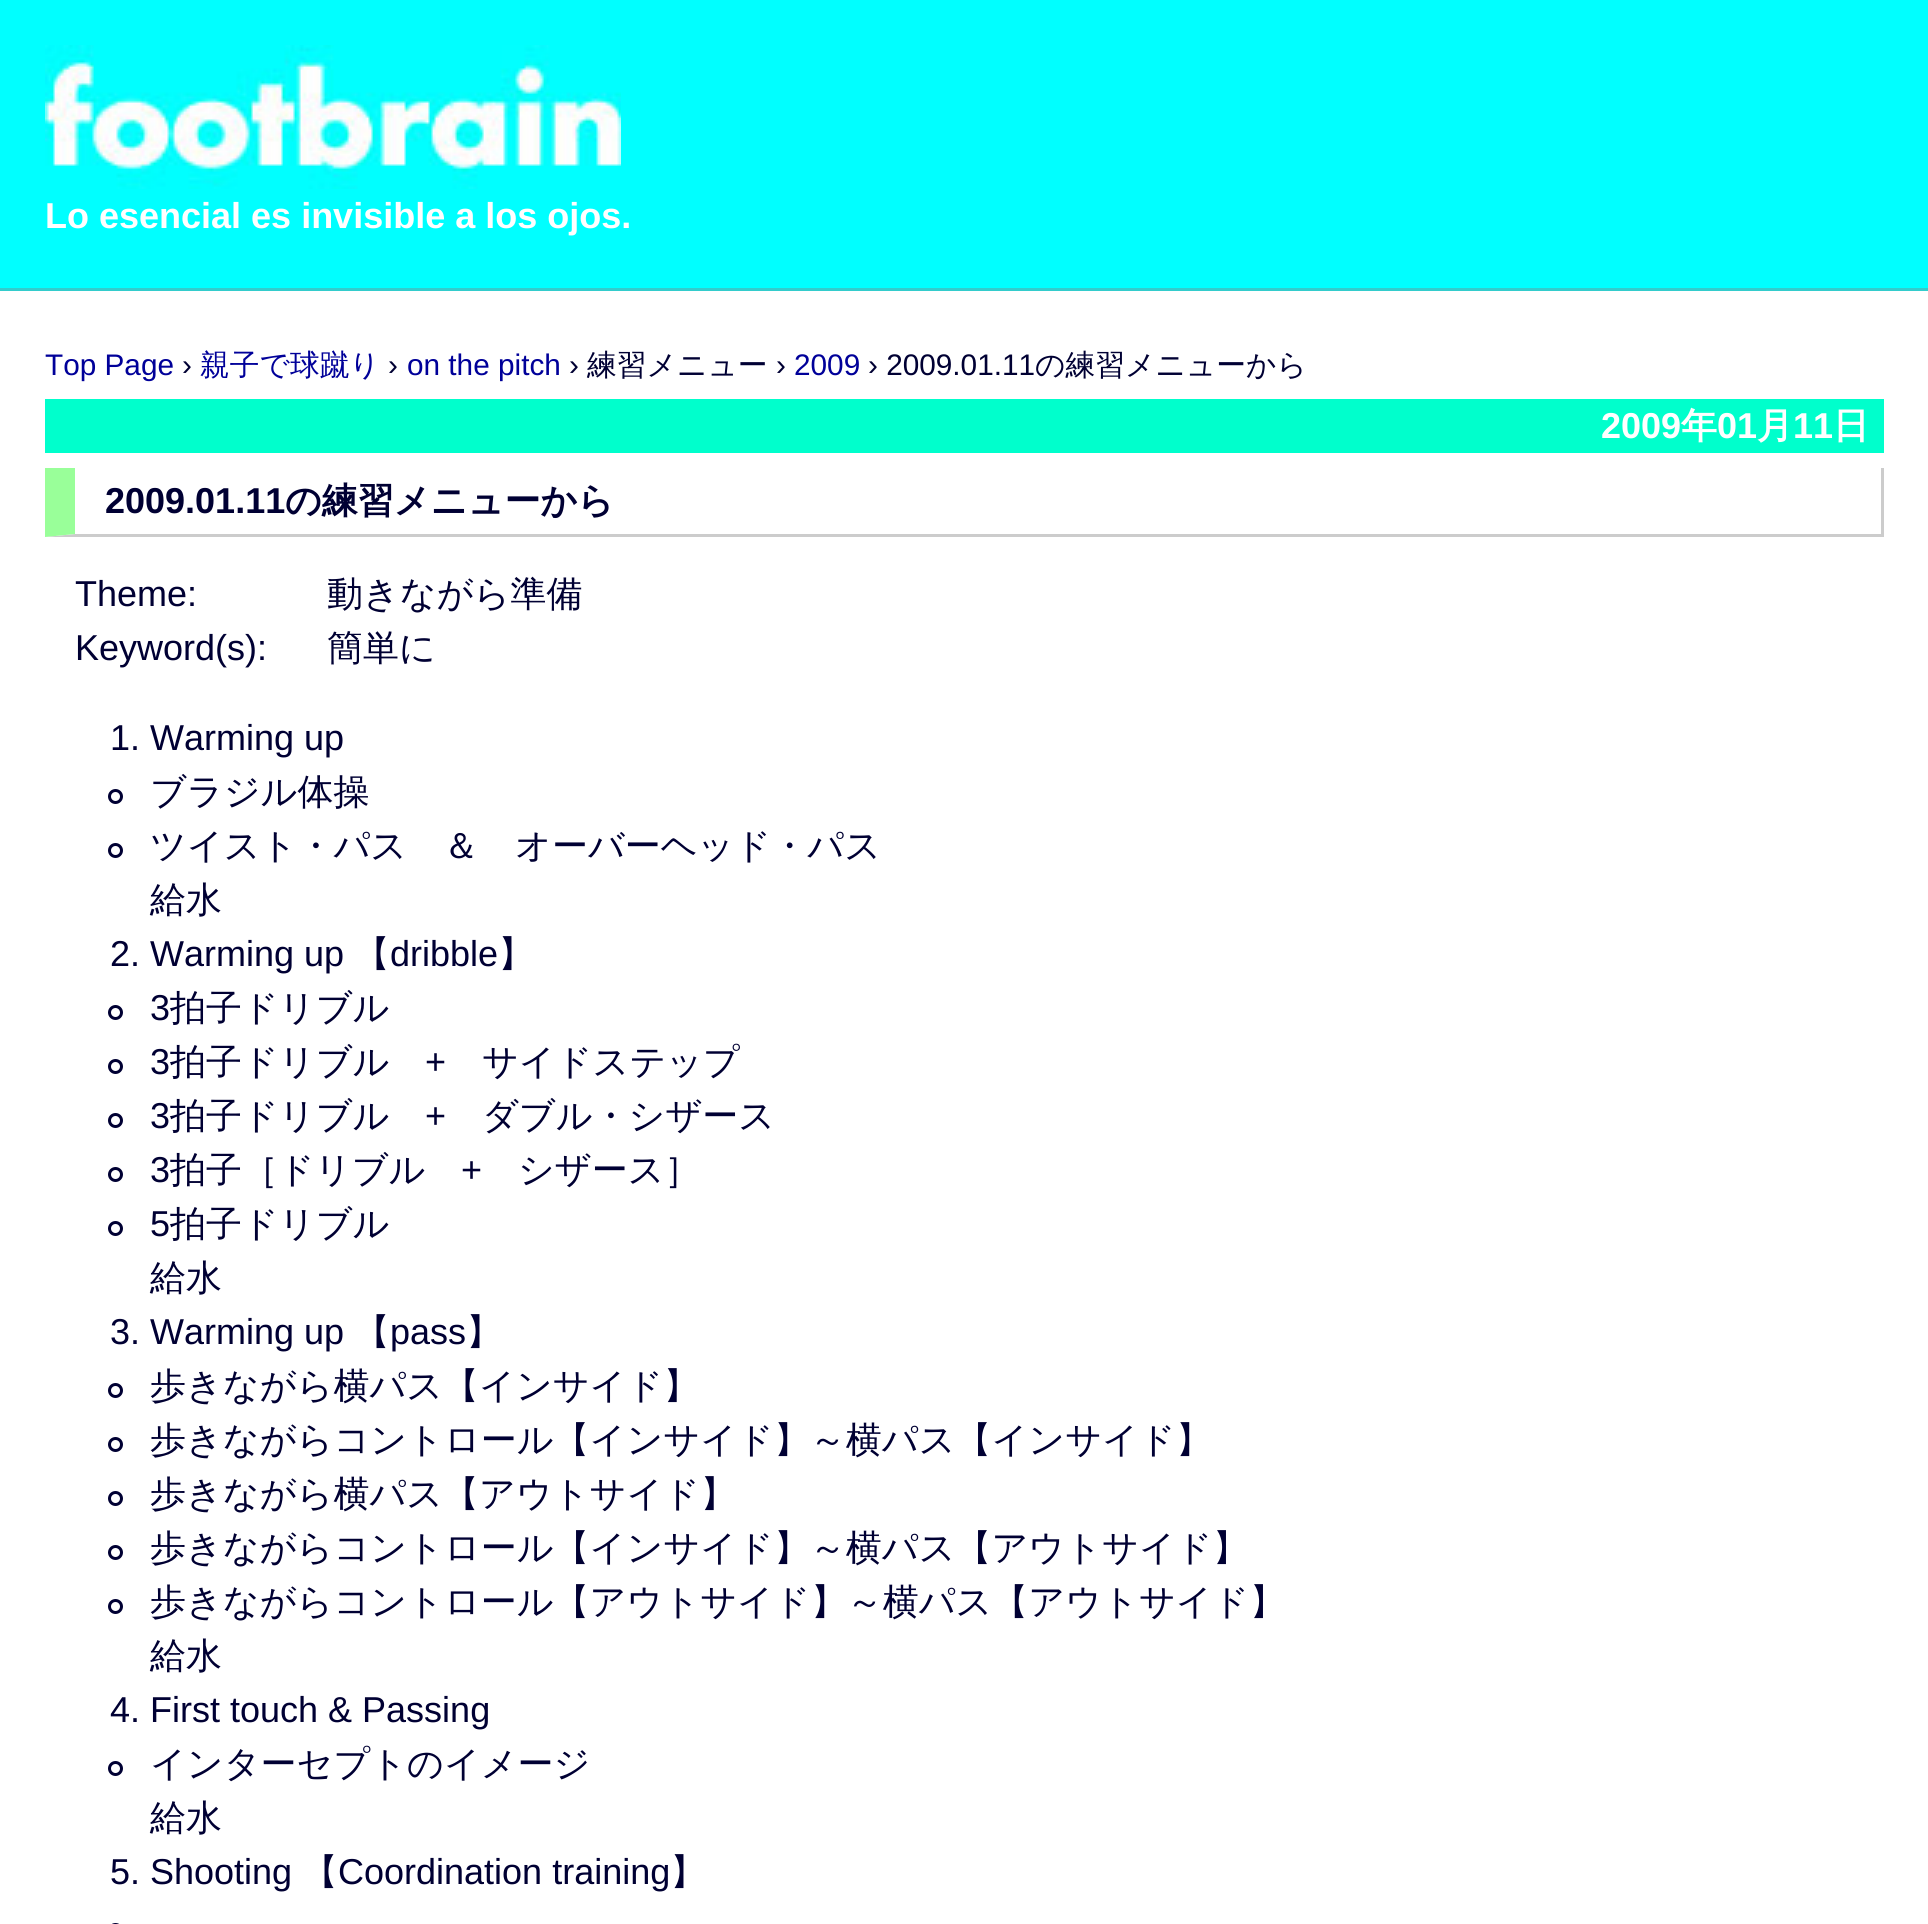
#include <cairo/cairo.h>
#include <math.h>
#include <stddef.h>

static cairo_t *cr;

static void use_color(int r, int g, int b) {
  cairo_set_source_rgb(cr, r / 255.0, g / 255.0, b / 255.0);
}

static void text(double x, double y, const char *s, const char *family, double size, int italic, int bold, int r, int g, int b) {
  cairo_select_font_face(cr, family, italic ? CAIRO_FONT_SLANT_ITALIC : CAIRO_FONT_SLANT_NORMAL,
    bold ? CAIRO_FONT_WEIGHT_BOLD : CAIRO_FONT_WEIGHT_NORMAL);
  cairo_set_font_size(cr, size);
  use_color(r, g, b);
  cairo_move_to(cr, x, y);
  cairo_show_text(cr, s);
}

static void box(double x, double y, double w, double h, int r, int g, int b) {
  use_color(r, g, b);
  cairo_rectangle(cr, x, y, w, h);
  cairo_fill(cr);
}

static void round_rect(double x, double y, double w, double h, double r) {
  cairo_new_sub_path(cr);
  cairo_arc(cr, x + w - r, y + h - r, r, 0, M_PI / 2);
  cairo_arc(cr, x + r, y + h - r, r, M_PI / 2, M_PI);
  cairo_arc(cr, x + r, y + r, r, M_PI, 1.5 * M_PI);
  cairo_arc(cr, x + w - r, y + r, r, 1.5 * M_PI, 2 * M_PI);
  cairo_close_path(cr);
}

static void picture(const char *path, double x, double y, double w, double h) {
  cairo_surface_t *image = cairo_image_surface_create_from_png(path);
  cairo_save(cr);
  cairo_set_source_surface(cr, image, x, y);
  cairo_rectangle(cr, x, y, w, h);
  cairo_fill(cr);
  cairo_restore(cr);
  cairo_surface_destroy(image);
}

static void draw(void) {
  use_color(255, 255, 255);
  cairo_paint(cr);
  box(0, 0, 1928, 288, 0, 255, 255);
  box(0, 288, 1928, 3, 51, 204, 204);
  picture("img_01.png", 45, 45, 576, 144);
  box(45, 399, 1839, 54, 0, 255, 204);
  box(1881, 468, 3, 69, 204, 204, 204);
  cairo_new_path(cr);
  cairo_move_to(cr, 1884, 537);
  cairo_line_to(cr, 45, 537);
  cairo_line_to(cr, 75, 534);
  cairo_line_to(cr, 1881, 534);
  cairo_close_path(cr);
  cairo_fill(cr);
  use_color(153, 255, 153);
  cairo_new_path(cr);
  cairo_move_to(cr, 45, 537);
  cairo_line_to(cr, 45, 468);
  cairo_line_to(cr, 75, 468);
  cairo_line_to(cr, 75, 534);
  cairo_close_path(cr);
  cairo_fill(cr);
  cairo_arc(cr, 115.5, 796.5, 6, 0, 2 * M_PI);
  use_color(0, 0, 51);
  cairo_set_line_width(cr, 3);
  cairo_stroke(cr);
  cairo_arc(cr, 115.5, 850.5, 6, 0, 2 * M_PI);
  cairo_stroke(cr);
  cairo_arc(cr, 115.5, 1012.5, 6, 0, 2 * M_PI);
  cairo_stroke(cr);
  cairo_arc(cr, 115.5, 1066.5, 6, 0, 2 * M_PI);
  cairo_stroke(cr);
  cairo_arc(cr, 115.5, 1120.5, 6, 0, 2 * M_PI);
  cairo_stroke(cr);
  cairo_arc(cr, 115.5, 1174.5, 6, 0, 2 * M_PI);
  cairo_stroke(cr);
  cairo_arc(cr, 115.5, 1228.5, 6, 0, 2 * M_PI);
  cairo_stroke(cr);
  cairo_arc(cr, 115.5, 1390.5, 6, 0, 2 * M_PI);
  cairo_stroke(cr);
  cairo_arc(cr, 115.5, 1444.5, 6, 0, 2 * M_PI);
  cairo_stroke(cr);
  cairo_arc(cr, 115.5, 1498.5, 6, 0, 2 * M_PI);
  cairo_stroke(cr);
  cairo_arc(cr, 115.5, 1552.5, 6, 0, 2 * M_PI);
  cairo_stroke(cr);
  cairo_arc(cr, 115.5, 1606.5, 6, 0, 2 * M_PI);
  cairo_stroke(cr);
  cairo_arc(cr, 115.5, 1768.5, 6, 0, 2 * M_PI);
  cairo_stroke(cr);
  round_rect(109.5, 1924.5, 12, 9, 6);
  cairo_stroke(cr);
  text(45, 228, "Lo esencial es invisible a los ojos.", "Liberation Sans", 36, 0, 1, 255, 255, 255);
  text(45, 375, "Top Page", "Liberation Sans", 29.75, 0, 0, 0, 0, 153);
  text(182, 375, "›", "Liberation Sans", 29.75, 0, 0, 0, 0, 51);
  text(200, 375, "親子で球蹴り", "WenQuanYi Zen Hei Medium", 29.75, 0, 0, 0, 0, 153);
  text(388, 375, "›", "Liberation Sans", 29.75, 0, 0, 0, 0, 51);
  text(407, 375, "on the pitch", "Liberation Sans", 29.75, 0, 0, 0, 0, 153);
  text(569, 375, "›", "Liberation Sans", 29.75, 0, 0, 0, 0, 51);
  text(587, 375, "練習メニュー", "WenQuanYi Zen Hei Medium", 29.75, 0, 0, 0, 0, 51);
  text(776, 375, "›", "Liberation Sans", 29.75, 0, 0, 0, 0, 51);
  text(794, 375, "2009", "Liberation Sans", 29.75, 0, 0, 0, 0, 153);
  text(868, 375, "› 2009.01.11", "Liberation Sans", 29.75, 0, 0, 0, 0, 51);
  text(1035, 375, "の練習メニューから", "WenQuanYi Zen Hei Medium", 29.75, 0, 0, 0, 0, 51);
  text(1601, 438, "2009", "Liberation Sans", 36, 0, 1, 255, 255, 255);
  text(1681, 438, "年", "WenQuanYi Zen Hei", 36, 0, 1, 255, 255, 255);
  text(1717, 438, "01", "Liberation Sans", 36, 0, 1, 255, 255, 255);
  text(1757, 438, "月", "WenQuanYi Zen Hei", 36, 0, 1, 255, 255, 255);
  text(1793, 438, "11", "Liberation Sans", 36, 0, 1, 255, 255, 255);
  text(1833, 438, "日", "WenQuanYi Zen Hei", 36, 0, 1, 255, 255, 255);
  text(105, 513, "2009.01.11", "Liberation Sans", 36, 0, 1, 0, 0, 51);
  text(285, 513, "の練習メニューから", "WenQuanYi Zen Hei", 36, 0, 1, 0, 0, 51);
  text(75, 606, "Theme:", "Liberation Sans", 36, 0, 0, 0, 0, 51);
  text(327, 606, "動きながら準備", "WenQuanYi Zen Hei Medium", 36, 0, 0, 0, 0, 51);
  text(75, 660, "Keyword(s):", "Liberation Sans", 36, 0, 0, 0, 0, 51);
  text(327, 660, "簡単に", "WenQuanYi Zen Hei Medium", 36, 0, 0, 0, 0, 51);
  text(110, 750, "1. Warming up", "Liberation Sans", 36, 0, 0, 0, 0, 51);
  text(150, 804, "ブラジル体操", "WenQuanYi Zen Hei Medium", 36, 0, 0, 0, 0, 51);
  text(150, 858, "ツイスト・パス　＆　オーバーヘッド・パス", "WenQuanYi Zen Hei Medium", 36, 0, 0, 0, 0, 51);
  text(150, 912, "給水", "WenQuanYi Zen Hei Medium", 36, 0, 0, 0, 0, 51);
  text(110, 966, "2. Warming up", "Liberation Sans", 36, 0, 0, 0, 0, 51);
  text(354, 966, "【", "WenQuanYi Zen Hei Medium", 36, 0, 0, 0, 0, 51);
  text(390, 966, "dribble", "Liberation Sans", 36, 0, 0, 0, 0, 51);
  text(498, 966, "】", "WenQuanYi Zen Hei Medium", 36, 0, 0, 0, 0, 51);
  text(150, 1020, "3", "Liberation Sans", 36, 0, 0, 0, 0, 51);
  text(170, 1020, "拍子ドリブル", "WenQuanYi Zen Hei Medium", 36, 0, 0, 0, 0, 51);
  text(150, 1074, "3", "Liberation Sans", 36, 0, 0, 0, 0, 51);
  text(170, 1074, "拍子ドリブル", "WenQuanYi Zen Hei Medium", 36, 0, 0, 0, 0, 51);
  text(425, 1074, "+", "Liberation Sans", 36, 0, 0, 0, 0, 51);
  text(482, 1074, "サイドステップ", "WenQuanYi Zen Hei Medium", 36, 0, 0, 0, 0, 51);
  text(150, 1128, "3", "Liberation Sans", 36, 0, 0, 0, 0, 51);
  text(170, 1128, "拍子ドリブル", "WenQuanYi Zen Hei Medium", 36, 0, 0, 0, 0, 51);
  text(425, 1128, "+", "Liberation Sans", 36, 0, 0, 0, 0, 51);
  text(482, 1128, "ダブル・シザース", "WenQuanYi Zen Hei Medium", 36, 0, 0, 0, 0, 51);
  text(150, 1182, "3", "Liberation Sans", 36, 0, 0, 0, 0, 51);
  text(170, 1182, "拍子［ドリブル", "WenQuanYi Zen Hei Medium", 36, 0, 0, 0, 0, 51);
  text(461, 1182, "+", "Liberation Sans", 36, 0, 0, 0, 0, 51);
  text(518, 1182, "シザース］", "WenQuanYi Zen Hei Medium", 36, 0, 0, 0, 0, 51);
  text(150, 1236, "5", "Liberation Sans", 36, 0, 0, 0, 0, 51);
  text(170, 1236, "拍子ドリブル", "WenQuanYi Zen Hei Medium", 36, 0, 0, 0, 0, 51);
  text(150, 1290, "給水", "WenQuanYi Zen Hei Medium", 36, 0, 0, 0, 0, 51);
  text(110, 1344, "3. Warming up", "Liberation Sans", 36, 0, 0, 0, 0, 51);
  text(354, 1344, "【", "WenQuanYi Zen Hei Medium", 36, 0, 0, 0, 0, 51);
  text(390, 1344, "pass", "Liberation Sans", 36, 0, 0, 0, 0, 51);
  text(466, 1344, "】", "WenQuanYi Zen Hei Medium", 36, 0, 0, 0, 0, 51);
  text(150, 1398, "歩きながら横パス【インサイド】", "WenQuanYi Zen Hei Medium", 36, 0, 0, 0, 0, 51);
  text(150, 1452, "歩きながらコントロール【インサイド】～横パス【インサイド】", "WenQuanYi Zen Hei Medium", 36, 0, 0, 0, 0, 51);
  text(150, 1506, "歩きながら横パス【アウトサイド】", "WenQuanYi Zen Hei Medium", 36, 0, 0, 0, 0, 51);
  text(150, 1560, "歩きながらコントロール【インサイド】～横パス【アウトサイド】", "WenQuanYi Zen Hei Medium", 36, 0, 0, 0, 0, 51);
  text(150, 1614, "歩きながらコントロール【アウトサイド】～横パス【アウトサイド】", "WenQuanYi Zen Hei Medium", 36, 0, 0, 0, 0, 51);
  text(150, 1668, "給水", "WenQuanYi Zen Hei Medium", 36, 0, 0, 0, 0, 51);
  text(110, 1722, "4. First touch & Passing", "Liberation Sans", 36, 0, 0, 0, 0, 51);
  text(150, 1776, "インターセプトのイメージ", "WenQuanYi Zen Hei Medium", 36, 0, 0, 0, 0, 51);
  text(150, 1830, "給水", "WenQuanYi Zen Hei Medium", 36, 0, 0, 0, 0, 51);
  text(110, 1884, "5. Shooting", "Liberation Sans", 36, 0, 0, 0, 0, 51);
  text(302, 1884, "【", "WenQuanYi Zen Hei Medium", 36, 0, 0, 0, 0, 51);
  text(338, 1884, "Coordination training", "Liberation Sans", 36, 0, 0, 0, 0, 51);
  text(670, 1884, "】", "WenQuanYi Zen Hei Medium", 36, 0, 0, 0, 0, 51);
}

int main(void) {
  cairo_surface_t *surface = cairo_image_surface_create(CAIRO_FORMAT_RGB24, 1928, 1924);
  cr = cairo_create(surface);
  cairo_font_options_t *options = cairo_font_options_create();
  cairo_font_options_set_hint_metrics(options, CAIRO_HINT_METRICS_OFF);
  cairo_font_options_set_hint_style(options, CAIRO_HINT_STYLE_NONE);
  cairo_set_font_options(cr, options);
  cairo_set_miter_limit(cr, 4);
  draw();
  cairo_surface_write_to_png(surface, "out.png");
  cairo_font_options_destroy(options);
  cairo_destroy(cr);
  cairo_surface_destroy(surface);
  return 0;
}
